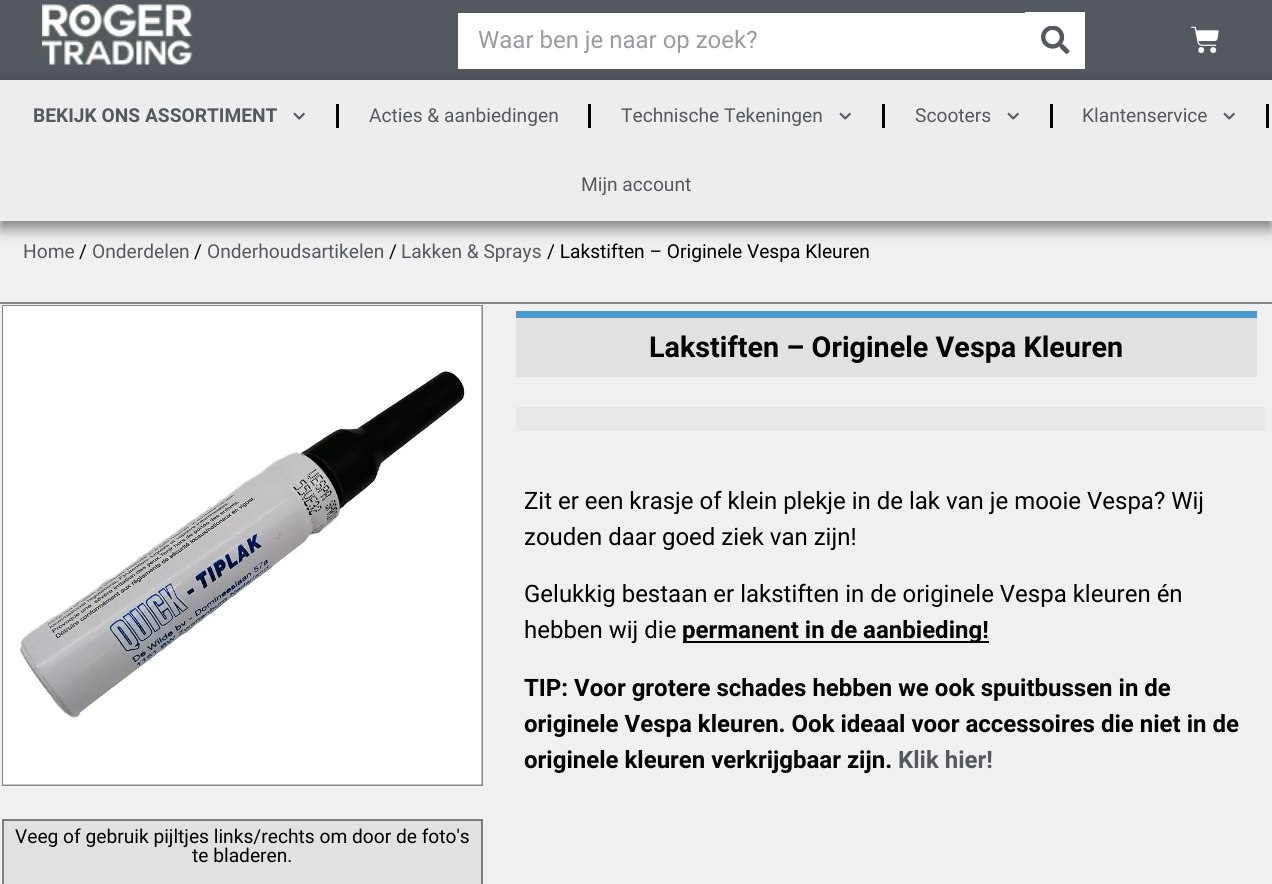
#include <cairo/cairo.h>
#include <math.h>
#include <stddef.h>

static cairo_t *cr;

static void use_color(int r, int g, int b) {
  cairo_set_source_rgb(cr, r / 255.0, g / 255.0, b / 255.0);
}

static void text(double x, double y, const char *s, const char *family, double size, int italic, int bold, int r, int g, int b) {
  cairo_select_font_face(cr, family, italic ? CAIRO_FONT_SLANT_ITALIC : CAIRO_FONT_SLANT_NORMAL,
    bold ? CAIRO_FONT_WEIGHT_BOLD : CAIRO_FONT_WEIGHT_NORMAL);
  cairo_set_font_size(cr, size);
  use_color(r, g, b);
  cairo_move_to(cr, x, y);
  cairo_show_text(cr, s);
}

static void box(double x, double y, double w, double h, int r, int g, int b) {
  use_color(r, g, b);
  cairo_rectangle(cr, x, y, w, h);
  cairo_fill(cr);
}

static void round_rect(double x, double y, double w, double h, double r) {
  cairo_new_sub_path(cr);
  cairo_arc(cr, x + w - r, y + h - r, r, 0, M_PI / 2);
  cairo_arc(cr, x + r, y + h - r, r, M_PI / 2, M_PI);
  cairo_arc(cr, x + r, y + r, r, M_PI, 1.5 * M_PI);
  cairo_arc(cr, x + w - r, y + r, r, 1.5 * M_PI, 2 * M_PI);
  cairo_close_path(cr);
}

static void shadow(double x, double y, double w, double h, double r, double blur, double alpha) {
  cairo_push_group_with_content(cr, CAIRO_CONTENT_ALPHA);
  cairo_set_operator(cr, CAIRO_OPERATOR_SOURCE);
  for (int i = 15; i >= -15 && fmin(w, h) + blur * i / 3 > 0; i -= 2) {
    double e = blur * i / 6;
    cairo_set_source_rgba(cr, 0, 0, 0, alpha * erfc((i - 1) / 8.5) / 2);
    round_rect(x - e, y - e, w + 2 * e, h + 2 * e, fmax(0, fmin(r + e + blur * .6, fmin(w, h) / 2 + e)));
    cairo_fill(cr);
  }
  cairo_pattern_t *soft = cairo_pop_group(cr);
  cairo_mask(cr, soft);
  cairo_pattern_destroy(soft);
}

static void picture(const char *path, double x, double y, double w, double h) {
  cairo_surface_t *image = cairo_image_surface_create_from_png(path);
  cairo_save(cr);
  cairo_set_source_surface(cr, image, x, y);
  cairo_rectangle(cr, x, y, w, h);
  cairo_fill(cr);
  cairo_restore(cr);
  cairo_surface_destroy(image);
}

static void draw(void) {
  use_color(240, 240, 240);
  cairo_paint(cr);
  box(0, 0, 1272, 80, 84, 89, 95);
  picture("img_01.png", 42, 4, 151, 61);
  box(458, 13, 567, 56, 255, 255, 255);
  box(1025, 12, 60, 57, 255, 255, 255);
  picture("img_02.png", 1041, 26, 29, 28);
  picture("img_03.png", 1191, 26, 28, 28);
  use_color(0, 0, 0);
  shadow(0, 87, 1272, 141, 0, 7.5, 0.5);
  box(0, 80, 1272, 141, 238, 237, 237);
  picture("img_04.png", 293, 112, 12, 8);
  box(336, 104, 3, 24, 0, 0, 0);
  box(588, 104, 3, 24, 0, 0, 0);
  picture("img_04.png", 839, 112, 12, 8);
  box(882, 104, 3, 24, 0, 0, 0);
  picture("img_04.png", 1007, 112, 12, 8);
  box(1050, 104, 3, 24, 0, 0, 0);
  picture("img_04.png", 1223, 112, 12, 8);
  box(1266, 104, 3, 24, 0, 0, 0);
  box(0, 302, 1272, 2, 134, 134, 134);
  box(516, 318, 741, 59, 225, 225, 225);
  box(516, 311, 741, 7, 73, 152, 206);
  box(516, 407, 749, 24, 232, 232, 232);
  box(683, 641, 306, 2, 0, 0, 0);
  cairo_rectangle(cr, 3, 306, 479, 479);
  use_color(134, 134, 134);
  cairo_stroke(cr);
  picture("img_05.png", 3, 306, 479, 479);
  use_color(225, 225, 225);
  cairo_rectangle(cr, 3, 820, 479, 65);
  cairo_fill_preserve(cr);
  use_color(126, 126, 126);
  cairo_stroke(cr);
  text(478, 48, "Waar ben je naar op zoek?", "Roboto", 24, 0, 0, 152, 155, 159);
  text(33, 122, "BEKIJK ONS ASSORTIMENT", "Roboto", 19.2, 0, 1, 84, 89, 95);
  text(369, 122, "Acties & aanbiedingen", "Roboto", 19.2, 0, 0, 84, 89, 95);
  text(621, 122, "Technische Tekeningen", "Roboto", 19.2, 0, 0, 84, 89, 95);
  text(915, 122, "Scooters", "Roboto", 19.2, 0, 0, 84, 89, 95);
  text(1082, 122, "Klantenservice", "Roboto", 19.2, 0, 0, 84, 89, 95);
  text(581, 191, "Mijn account", "Roboto", 19.2, 0, 0, 84, 89, 95);
  text(23, 258, "Home", "Roboto", 19.2, 0, 0, 84, 89, 95);
  text(79, 258, "/", "Roboto", 19.2, 0, 0, 0, 0, 0);
  text(92, 258, "Onderdelen", "Roboto", 19.2, 0, 0, 84, 89, 95);
  text(194, 258, "/", "Roboto", 19.2, 0, 0, 0, 0, 0);
  text(207, 258, "Onderhoudsartikelen", "Roboto", 19.2, 0, 0, 84, 89, 95);
  text(389, 258, "/", "Roboto", 19.2, 0, 0, 0, 0, 0);
  text(401, 258, "Lakken & Sprays", "Roboto", 19.2, 0, 0, 84, 89, 95);
  text(547, 258, "/ Lakstiften – Originele Vespa Kleuren", "Roboto", 19.2, 0, 0, 0, 0, 0);
  text(649, 357, "Lakstiften – Originele Vespa Kleuren", "Roboto", 28.75, 0, 1, 0, 0, 0);
  text(524, 509, "Zit er een krasje of klein plekje in de lak van je mooie Vespa? Wij", "Roboto", 24, 0, 0, 0, 0, 0);
  text(524, 545, "zouden daar goed ziek van zijn!", "Roboto", 24, 0, 0, 0, 0, 0);
  text(524, 602, "Gelukkig bestaan er lakstiften in de originele Vespa kleuren én", "Roboto", 24, 0, 0, 0, 0, 0);
  text(524, 638, "hebben wij die", "Roboto", 24, 0, 0, 0, 0, 0);
  text(682, 638, "permanent in de aanbieding!", "Roboto", 24, 0, 1, 0, 0, 0);
  text(524, 696, "TIP: Voor grotere schades hebben we ook spuitbussen in de", "Roboto", 24, 0, 1, 0, 0, 0);
  text(524, 732, "originele Vespa kleuren. Ook ideaal voor accessoires die niet in de", "Roboto", 24, 0, 1, 0, 0, 0);
  text(524, 768, "originele kleuren verkrijgbaar zijn.", "Roboto", 24, 0, 1, 0, 0, 0);
  text(898, 768, "Klik hier!", "Roboto", 24, 0, 1, 84, 89, 95);
  text(15, 843, "Veeg of gebruik pijltjes links/rechts om door de foto's", "Roboto", 19.2, 0, 0, 0, 0, 0);
  text(192, 862, "te bladeren.", "Roboto", 19.2, 0, 0, 0, 0, 0);
}

int main(void) {
  cairo_surface_t *surface = cairo_image_surface_create(CAIRO_FORMAT_RGB24, 1272, 884);
  cr = cairo_create(surface);
  cairo_font_options_t *options = cairo_font_options_create();
  cairo_font_options_set_hint_metrics(options, CAIRO_HINT_METRICS_OFF);
  cairo_font_options_set_hint_style(options, CAIRO_HINT_STYLE_NONE);
  cairo_set_font_options(cr, options);
  cairo_set_miter_limit(cr, 4);
  draw();
  cairo_surface_write_to_png(surface, "out.png");
  cairo_font_options_destroy(options);
  cairo_destroy(cr);
  cairo_surface_destroy(surface);
  return 0;
}
